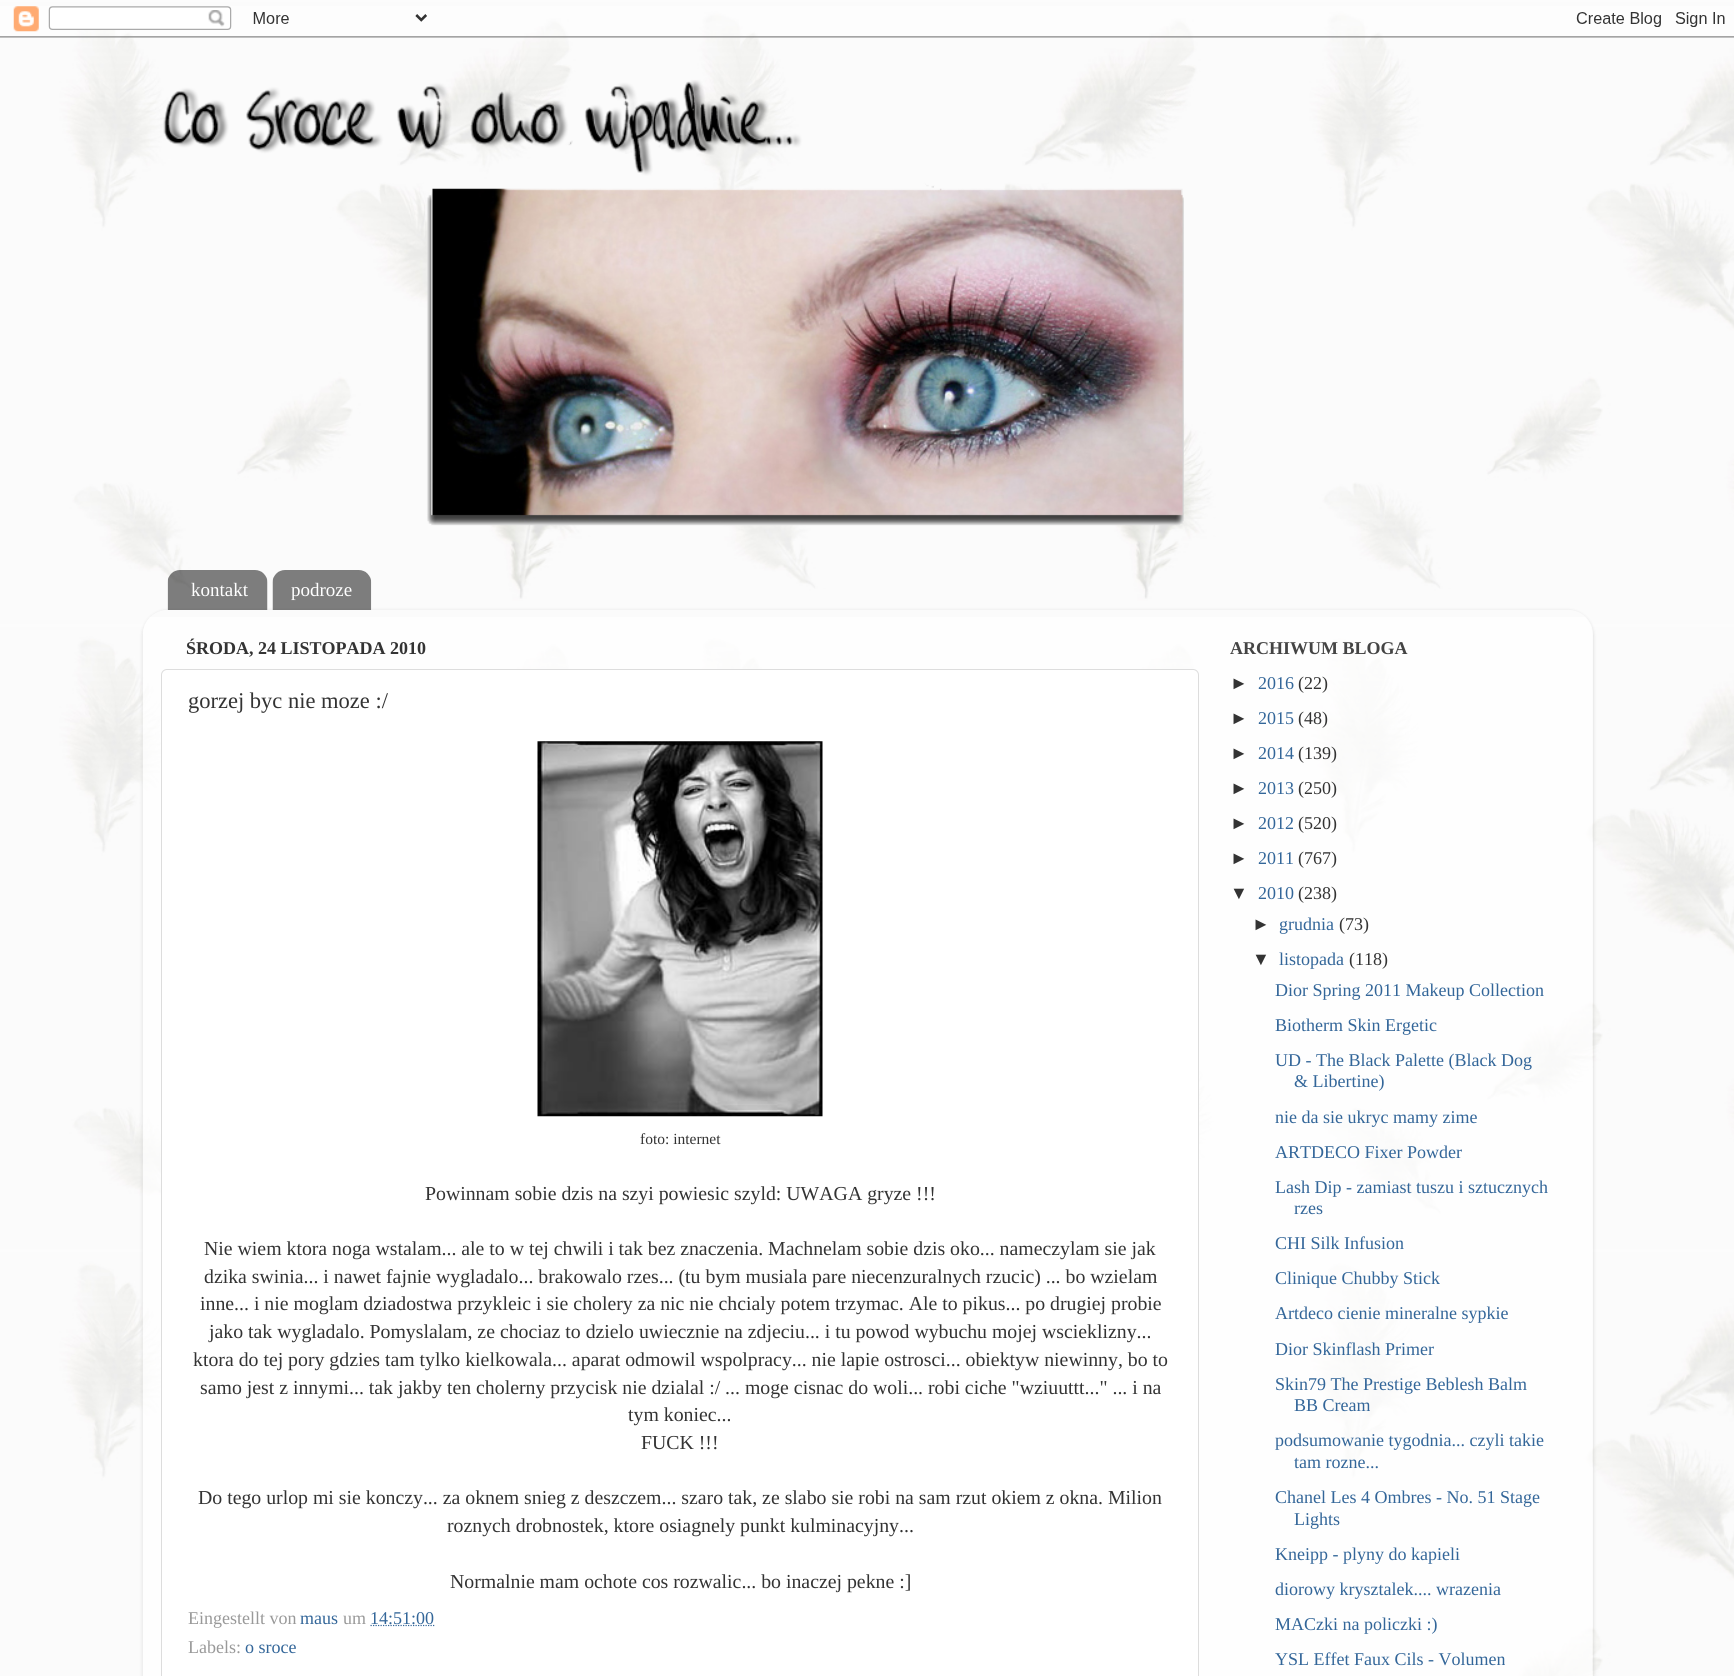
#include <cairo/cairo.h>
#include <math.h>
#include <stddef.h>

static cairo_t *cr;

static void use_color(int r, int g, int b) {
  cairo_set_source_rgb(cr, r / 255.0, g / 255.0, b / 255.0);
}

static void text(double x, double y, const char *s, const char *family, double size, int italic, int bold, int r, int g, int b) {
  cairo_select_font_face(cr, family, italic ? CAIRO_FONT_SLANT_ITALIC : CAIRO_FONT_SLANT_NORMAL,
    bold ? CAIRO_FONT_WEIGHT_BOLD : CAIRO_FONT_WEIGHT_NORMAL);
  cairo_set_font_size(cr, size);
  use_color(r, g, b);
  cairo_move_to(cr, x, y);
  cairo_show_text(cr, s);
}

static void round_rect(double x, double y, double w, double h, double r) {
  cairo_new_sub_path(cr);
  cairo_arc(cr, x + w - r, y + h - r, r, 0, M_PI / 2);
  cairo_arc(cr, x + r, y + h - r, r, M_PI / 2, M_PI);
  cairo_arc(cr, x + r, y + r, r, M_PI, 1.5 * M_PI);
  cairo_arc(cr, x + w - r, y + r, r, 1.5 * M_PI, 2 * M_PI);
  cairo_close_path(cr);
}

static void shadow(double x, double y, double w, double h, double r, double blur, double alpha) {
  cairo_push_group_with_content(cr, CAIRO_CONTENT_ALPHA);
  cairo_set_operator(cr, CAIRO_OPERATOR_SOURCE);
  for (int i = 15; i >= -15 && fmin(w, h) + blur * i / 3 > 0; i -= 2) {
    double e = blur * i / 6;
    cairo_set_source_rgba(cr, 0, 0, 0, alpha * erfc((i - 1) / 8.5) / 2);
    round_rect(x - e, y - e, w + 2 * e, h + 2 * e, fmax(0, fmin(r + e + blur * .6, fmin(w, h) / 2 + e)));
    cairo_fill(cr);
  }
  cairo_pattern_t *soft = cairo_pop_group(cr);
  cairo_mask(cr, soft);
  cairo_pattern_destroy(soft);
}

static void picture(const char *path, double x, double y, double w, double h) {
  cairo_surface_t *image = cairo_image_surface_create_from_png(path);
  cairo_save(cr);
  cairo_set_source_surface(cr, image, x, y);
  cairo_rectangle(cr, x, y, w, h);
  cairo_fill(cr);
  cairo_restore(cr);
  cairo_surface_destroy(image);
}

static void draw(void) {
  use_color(255, 255, 255);
  cairo_paint(cr);
  picture("img_01.png", 0, 0, 1734, 1676);
  picture("img_02.png", 0, 6, 1734, 32);
  picture("img_03.png", 163, 80, 1021, 446);
  picture("img_04.png", 167, 570, 101, 40);
  picture("img_05.png", 272, 570, 100, 40);
  cairo_save(cr);
  cairo_set_fill_rule(cr, CAIRO_FILL_RULE_EVEN_ODD);
  cairo_new_path(cr);
  cairo_move_to(cr, 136, 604);
  cairo_line_to(cr, 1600, 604);
  cairo_line_to(cr, 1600, 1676);
  cairo_line_to(cr, 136, 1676);
  cairo_close_path(cr);
  cairo_move_to(cr, 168, 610);
  cairo_line_to(cr, 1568, 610);
  cairo_curve_to(cr, 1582, 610, 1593, 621, 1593, 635);
  cairo_line_to(cr, 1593, 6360);
  cairo_line_to(cr, 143, 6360);
  cairo_line_to(cr, 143, 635);
  cairo_curve_to(cr, 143, 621, 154, 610, 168, 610);
  cairo_close_path(cr);
  cairo_clip(cr);
  use_color(0, 0, 0);
  shadow(143, 611, 1450, 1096, 25, 2, 0.15);
  cairo_restore(cr);
  picture("img_06.png", 142, 617, 1451, 1059);
  use_color(255, 255, 255);
  round_rect(161.5, 669.5, 1037, 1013, 5.5);
  cairo_fill_preserve(cr);
  use_color(221, 221, 221);
  cairo_set_line_width(cr, 1);
  cairo_stroke(cr);
  picture("img_07.png", 537, 741, 286, 376);
  cairo_new_path(cr);
  cairo_move_to(cr, 370.5, 1625.5);
  cairo_line_to(cr, 434.5, 1625.5);
  use_color(51, 102, 153);
  cairo_set_line_width(cr, 1.2);
  cairo_set_dash(cr, (double[]){1.25, 1.25}, 2, 0);
  cairo_stroke(cr);
  text(191, 596, "kontakt", "Liberation Serif", 19, 0, 0, 255, 255, 255);
  text(291, 596, "podroze", "Liberation Serif", 19, 0, 0, 255, 255, 255);
  text(186, 654, "ŚRODA, 24 LISTOPADA 2010", "Liberation Serif", 18, 0, 1, 51, 51, 51);
  text(188, 708, "gorzej byc nie moze :/", "Liberation Serif", 22.5, 0, 0, 51, 51, 51);
  text(640, 1144, "foto: internet", "Liberation Serif", 15.5, 0, 0, 51, 51, 51);
  text(425, 1200, "Powinnam sobie dzis na szyi powiesic szyld: UWAGA gryze !!!", "Liberation Serif", 19.8, 0, 0, 51, 51, 51);
  text(204, 1255, "Nie wiem ktora noga wstalam... ale to w tej chwili i tak bez znaczenia. Machnelam sobie dzis oko... nameczylam sie jak", "Liberation Serif", 19.8, 0, 0, 51, 51, 51);
  text(204, 1283, "dzika swinia... i nawet fajnie wygladalo... brakowalo rzes... (tu bym musiala pare niecenzuralnych rzucic) ... bo wzielam", "Liberation Serif", 19.8, 0, 0, 51, 51, 51);
  text(200, 1310, "inne... i nie moglam dziadostwa przykleic i sie cholery za nic nie chcialy potem trzymac. Ale to pikus... po drugiej probie", "Liberation Serif", 19.8, 0, 0, 51, 51, 51);
  text(209, 1338, "jako tak wygladalo. Pomyslalam, ze chociaz to dzielo uwiecznie na zdjeciu... i tu powod wybuchu mojej wscieklizny...", "Liberation Serif", 19.8, 0, 0, 51, 51, 51);
  text(193, 1366, "ktora do tej pory gdzies tam tylko kielkowala... aparat odmowil wspolpracy... nie lapie ostrosci... obiektyw niewinny, bo to", "Liberation Serif", 19.8, 0, 0, 51, 51, 51);
  text(200, 1394, "samo jest z innymi... tak jakby ten cholerny przycisk nie dzialal :/ ... moge cisnac do woli... robi ciche \"wziuuttt...\" ... i na", "Liberation Serif", 19.8, 0, 0, 51, 51, 51);
  text(628, 1421, "tym koniec...", "Liberation Serif", 19.8, 0, 0, 51, 51, 51);
  text(641, 1449, "FUCK !!!", "Liberation Serif", 19.8, 0, 0, 51, 51, 51);
  text(198, 1504, "Do tego urlop mi sie konczy... za oknem snieg z deszczem... szaro tak, ze slabo sie robi na sam rzut okiem z okna. Milion", "Liberation Serif", 19.8, 0, 0, 51, 51, 51);
  text(447, 1532, "roznych drobnostek, ktore osiagnely punkt kulminacyjny...", "Liberation Serif", 19.8, 0, 0, 51, 51, 51);
  text(450, 1588, "Normalnie mam ochote cos rozwalic... bo inaczej pekne :]", "Liberation Serif", 19.8, 0, 0, 51, 51, 51);
  text(188, 1624, "Eingestellt von", "Liberation Serif", 18, 0, 0, 153, 153, 153);
  text(300, 1624, "maus", "Liberation Serif", 18, 0, 0, 51, 102, 153);
  text(343, 1624, "um", "Liberation Serif", 18, 0, 0, 153, 153, 153);
  text(370, 1624, "14:51:00", "Liberation Serif", 18, 0, 0, 51, 102, 153);
  text(188, 1653, "Labels:", "Liberation Serif", 18, 0, 0, 153, 153, 153);
  text(245, 1653, "o sroce", "Liberation Serif", 18, 0, 0, 51, 102, 153);
  text(1230, 654, "ARCHIWUM BLOGA", "Liberation Serif", 18, 0, 1, 68, 68, 68);
  text(1230, 689, "►", "Liberation Sans", 18, 0, 0, 51, 51, 51);
  text(1258, 689, "2016", "Liberation Serif", 18, 0, 0, 51, 102, 153);
  text(1298, 689, "(22)", "Liberation Serif", 18, 0, 0, 51, 51, 51);
  text(1230, 724, "►", "Liberation Sans", 18, 0, 0, 51, 51, 51);
  text(1258, 724, "2015", "Liberation Serif", 18, 0, 0, 51, 102, 153);
  text(1298, 724, "(48)", "Liberation Serif", 18, 0, 0, 51, 51, 51);
  text(1230, 759, "►", "Liberation Sans", 18, 0, 0, 51, 51, 51);
  text(1258, 759, "2014", "Liberation Serif", 18, 0, 0, 51, 102, 153);
  text(1298, 759, "(139)", "Liberation Serif", 18, 0, 0, 51, 51, 51);
  text(1230, 794, "►", "Liberation Sans", 18, 0, 0, 51, 51, 51);
  text(1258, 794, "2013", "Liberation Serif", 18, 0, 0, 51, 102, 153);
  text(1298, 794, "(250)", "Liberation Serif", 18, 0, 0, 51, 51, 51);
  text(1230, 829, "►", "Liberation Sans", 18, 0, 0, 51, 51, 51);
  text(1258, 829, "2012", "Liberation Serif", 18, 0, 0, 51, 102, 153);
  text(1298, 829, "(520)", "Liberation Serif", 18, 0, 0, 51, 51, 51);
  text(1230, 864, "►", "Liberation Sans", 18, 0, 0, 51, 51, 51);
  text(1258, 864, "2011", "Liberation Serif", 18, 0, 0, 51, 102, 153);
  text(1298, 864, "(767)", "Liberation Serif", 18, 0, 0, 51, 51, 51);
  text(1230, 899, "▼", "Liberation Sans", 18, 0, 0, 51, 51, 51);
  text(1258, 899, "2010", "Liberation Serif", 18, 0, 0, 51, 102, 153);
  text(1298, 899, "(238)", "Liberation Serif", 18, 0, 0, 51, 51, 51);
  text(1252, 930, "►", "Liberation Sans", 18, 0, 0, 51, 51, 51);
  text(1279, 930, "grudnia", "Liberation Serif", 18, 0, 0, 51, 102, 153);
  text(1339, 930, "(73)", "Liberation Serif", 18, 0, 0, 51, 51, 51);
  text(1252, 965, "▼", "Liberation Sans", 18, 0, 0, 51, 51, 51);
  text(1279, 965, "listopada", "Liberation Serif", 18, 0, 0, 51, 102, 153);
  text(1349, 965, "(118)", "Liberation Serif", 18, 0, 0, 51, 51, 51);
  text(1275, 996, "Dior Spring 2011 Makeup Collection", "Liberation Serif", 18, 0, 0, 51, 102, 153);
  text(1275, 1031, "Biotherm Skin Ergetic", "Liberation Serif", 18, 0, 0, 51, 102, 153);
  text(1275, 1066, "UD - The Black Palette (Black Dog", "Liberation Serif", 18, 0, 0, 51, 102, 153);
  text(1294, 1087, "& Libertine)", "Liberation Serif", 18, 0, 0, 51, 102, 153);
  text(1275, 1123, "nie da sie ukryc mamy zime", "Liberation Serif", 18, 0, 0, 51, 102, 153);
  text(1275, 1158, "ARTDECO Fixer Powder", "Liberation Serif", 18, 0, 0, 51, 102, 153);
  text(1275, 1193, "Lash Dip - zamiast tuszu i sztucznych", "Liberation Serif", 18, 0, 0, 51, 102, 153);
  text(1294, 1214, "rzes", "Liberation Serif", 18, 0, 0, 51, 102, 153);
  text(1275, 1249, "CHI Silk Infusion", "Liberation Serif", 18, 0, 0, 51, 102, 153);
  text(1275, 1284, "Clinique Chubby Stick", "Liberation Serif", 18, 0, 0, 51, 102, 153);
  text(1275, 1319, "Artdeco cienie mineralne sypkie", "Liberation Serif", 18, 0, 0, 51, 102, 153);
  text(1275, 1355, "Dior Skinflash Primer", "Liberation Serif", 18, 0, 0, 51, 102, 153);
  text(1275, 1390, "Skin79 The Prestige Beblesh Balm", "Liberation Serif", 18, 0, 0, 51, 102, 153);
  text(1294, 1411, "BB Cream", "Liberation Serif", 18, 0, 0, 51, 102, 153);
  text(1275, 1446, "podsumowanie tygodnia... czyli takie", "Liberation Serif", 18, 0, 0, 51, 102, 153);
  text(1294, 1468, "tam rozne...", "Liberation Serif", 18, 0, 0, 51, 102, 153);
  text(1275, 1503, "Chanel Les 4 Ombres - No. 51 Stage", "Liberation Serif", 18, 0, 0, 51, 102, 153);
  text(1294, 1525, "Lights", "Liberation Serif", 18, 0, 0, 51, 102, 153);
  text(1275, 1560, "Kneipp - plyny do kapieli", "Liberation Serif", 18, 0, 0, 51, 102, 153);
  text(1275, 1595, "diorowy krysztalek.... wrazenia", "Liberation Serif", 18, 0, 0, 51, 102, 153);
  text(1275, 1630, "MACzki na policzki :)", "Liberation Serif", 18, 0, 0, 51, 102, 153);
  text(1275, 1665, "YSL Effet Faux Cils - Volumen", "Liberation Serif", 18, 0, 0, 51, 102, 153);
}

int main(void) {
  cairo_surface_t *surface = cairo_image_surface_create(CAIRO_FORMAT_RGB24, 1734, 1676);
  cr = cairo_create(surface);
  cairo_font_options_t *options = cairo_font_options_create();
  cairo_font_options_set_hint_metrics(options, CAIRO_HINT_METRICS_OFF);
  cairo_font_options_set_hint_style(options, CAIRO_HINT_STYLE_NONE);
  cairo_set_font_options(cr, options);
  cairo_set_miter_limit(cr, 4);
  draw();
  cairo_surface_write_to_png(surface, "out.png");
  cairo_font_options_destroy(options);
  cairo_destroy(cr);
  cairo_surface_destroy(surface);
  return 0;
}
